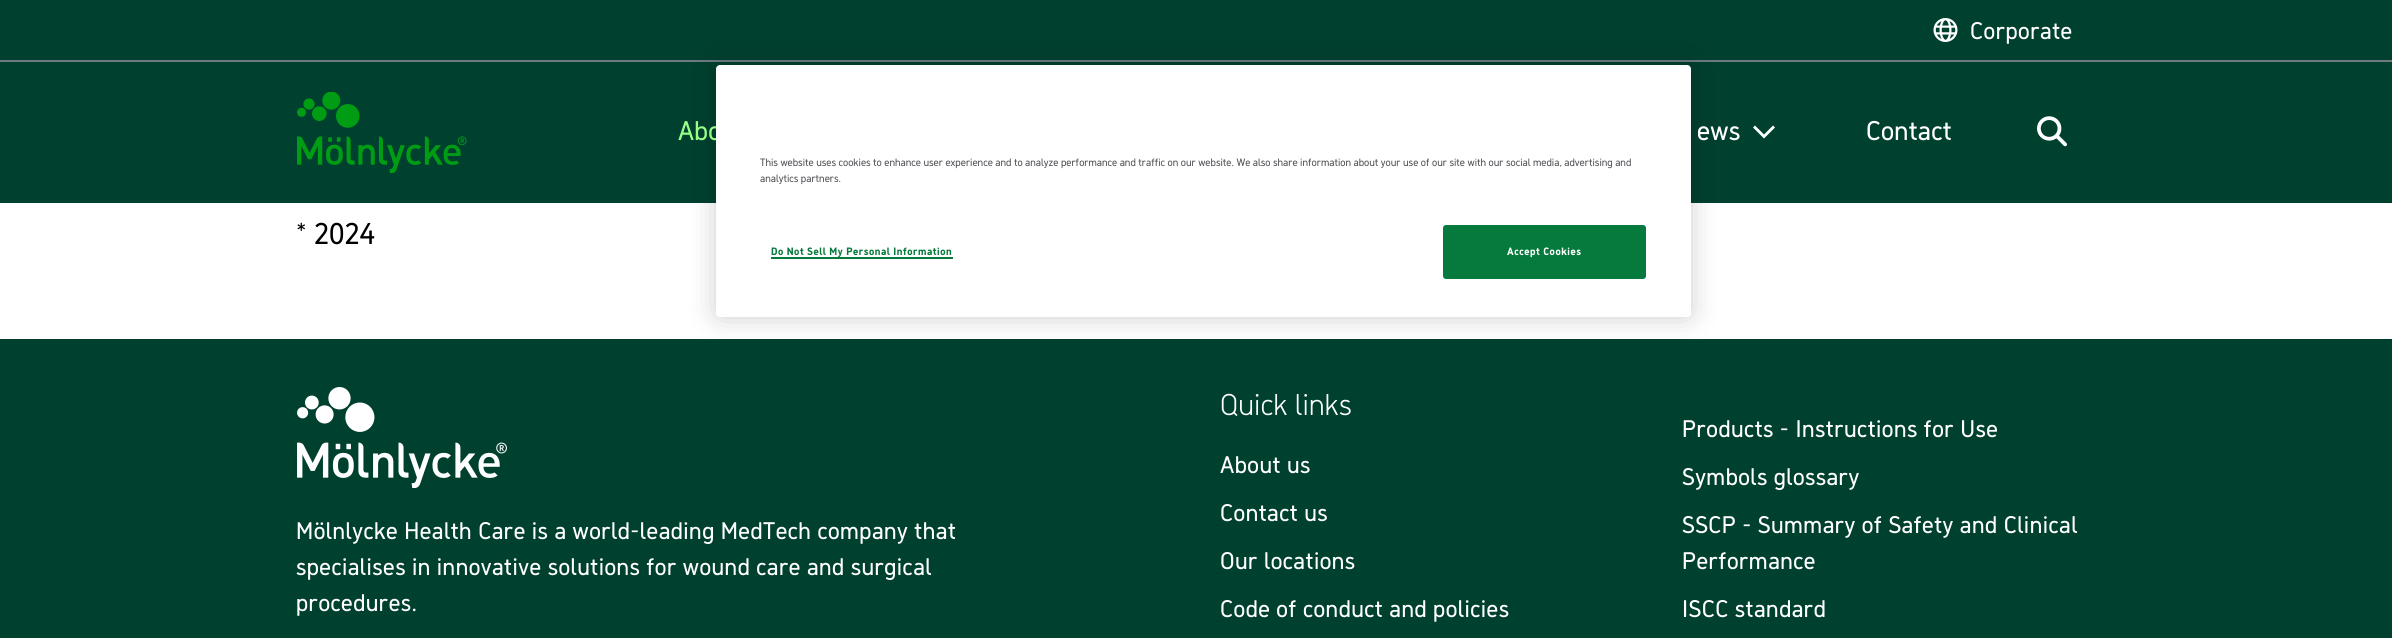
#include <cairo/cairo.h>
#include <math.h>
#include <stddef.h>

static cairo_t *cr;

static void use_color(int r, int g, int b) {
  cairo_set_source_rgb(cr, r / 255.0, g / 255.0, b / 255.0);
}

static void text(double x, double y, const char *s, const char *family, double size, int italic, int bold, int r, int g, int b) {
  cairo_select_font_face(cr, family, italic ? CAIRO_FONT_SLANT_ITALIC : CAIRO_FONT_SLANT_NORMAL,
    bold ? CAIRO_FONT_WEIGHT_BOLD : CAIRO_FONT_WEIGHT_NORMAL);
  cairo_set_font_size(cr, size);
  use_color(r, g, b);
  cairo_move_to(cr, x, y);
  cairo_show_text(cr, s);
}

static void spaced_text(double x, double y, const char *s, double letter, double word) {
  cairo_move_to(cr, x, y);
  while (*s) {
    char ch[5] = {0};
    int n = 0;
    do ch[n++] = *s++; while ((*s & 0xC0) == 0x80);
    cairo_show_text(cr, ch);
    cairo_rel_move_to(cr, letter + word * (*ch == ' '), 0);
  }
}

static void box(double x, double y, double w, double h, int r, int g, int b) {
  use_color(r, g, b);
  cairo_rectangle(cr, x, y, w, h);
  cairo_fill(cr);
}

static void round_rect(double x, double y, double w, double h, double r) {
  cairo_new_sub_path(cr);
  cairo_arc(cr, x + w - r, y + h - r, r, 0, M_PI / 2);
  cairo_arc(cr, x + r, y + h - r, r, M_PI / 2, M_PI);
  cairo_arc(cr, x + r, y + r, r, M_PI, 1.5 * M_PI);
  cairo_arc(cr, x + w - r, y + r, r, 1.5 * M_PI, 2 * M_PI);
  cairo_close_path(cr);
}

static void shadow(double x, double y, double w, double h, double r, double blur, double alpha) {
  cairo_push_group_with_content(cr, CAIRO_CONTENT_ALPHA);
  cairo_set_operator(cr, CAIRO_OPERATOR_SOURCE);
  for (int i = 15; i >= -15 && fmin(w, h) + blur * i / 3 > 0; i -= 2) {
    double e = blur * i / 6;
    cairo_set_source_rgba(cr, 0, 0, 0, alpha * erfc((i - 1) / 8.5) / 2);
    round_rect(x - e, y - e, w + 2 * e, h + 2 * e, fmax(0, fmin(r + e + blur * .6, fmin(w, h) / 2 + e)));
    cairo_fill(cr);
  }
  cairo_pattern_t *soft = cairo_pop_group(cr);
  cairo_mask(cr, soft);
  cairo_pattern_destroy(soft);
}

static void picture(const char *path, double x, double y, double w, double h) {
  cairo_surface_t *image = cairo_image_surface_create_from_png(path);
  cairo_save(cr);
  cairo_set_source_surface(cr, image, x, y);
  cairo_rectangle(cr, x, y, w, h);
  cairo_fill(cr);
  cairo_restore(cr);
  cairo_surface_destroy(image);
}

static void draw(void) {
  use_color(255, 255, 255);
  cairo_paint(cr);
  box(0, 0, 2392, 60, 0, 64, 47);
  box(0, 60, 2392, 2, 110, 123, 131);
  picture("img_01.png", 1933, 18, 25, 24);
  box(0, 62, 2392, 141, 0, 64, 47);
  picture("img_02.png", 297, 92, 170, 81);
  use_color(255, 255, 255);
  cairo_new_path(cr);
  cairo_move_to(cr, 1764, 138.5);
  cairo_line_to(cr, 1775, 127.5);
  cairo_line_to(cr, 1773, 125.5);
  cairo_line_to(cr, 1764, 134.5);
  cairo_line_to(cr, 1755, 125.5);
  cairo_line_to(cr, 1753, 127.5);
  cairo_close_path(cr);
  cairo_fill(cr);
  picture("img_03.png", 2037, 116, 30, 31);
  box(0, 339, 2392, 299, 0, 64, 47);
  use_color(0, 0, 0);
  shadow(716, 65, 975, 252, 4, 13.5, 0.2);
  picture("img_04.png", 297, 387, 210, 101);
  cairo_select_font_face(cr, "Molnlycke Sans", CAIRO_FONT_SLANT_NORMAL, CAIRO_FONT_WEIGHT_NORMAL);
  cairo_set_font_size(cr, 24);
  use_color(255, 255, 255);
  spaced_text(1970, 39, "Corporate", 0.48, 0);
  cairo_set_font_size(cr, 27);
  use_color(151, 255, 134);
  spaced_text(678, 140, "Abo", 0.25, 0);
  use_color(255, 255, 255);
  spaced_text(1697, 140, "ews", 0.25, 0);
  spaced_text(1866, 140, "Contact", 0.25, 0);
  cairo_set_font_size(cr, 30);
  use_color(0, 0, 0);
  spaced_text(296, 244, "* 2024", 0.25, 0);
  use_color(255, 255, 255);
  round_rect(716, 65, 975, 252, 4);
  cairo_fill(cr);
  text(760, 166, "This website uses cookies to enhance user experience and to analyze performance and traffic on our website. We also share information about your use of our site with our social media, advertising and", "Molnlycke Sans", 10.67, 0, 0, 85, 85, 90);
  text(760, 182, "analytics partners.", "Molnlycke Sans", 10.67, 0, 0, 85, 85, 90);
  box(771, 257, 182, 2, 6, 122, 60);
  cairo_select_font_face(cr, "Molnlycke Sans", CAIRO_FONT_SLANT_NORMAL, CAIRO_FONT_WEIGHT_BOLD);
  spaced_text(771, 255, "Do Not Sell My Personal Information", 0.55, 0);
  round_rect(1444, 226, 201, 52, 2);
  cairo_fill_preserve(cr);
  cairo_stroke(cr);
  use_color(255, 255, 255);
  spaced_text(1507, 255, "Accept Cookies", 0.55, 0);
  cairo_select_font_face(cr, "Molnlycke Sans", CAIRO_FONT_SLANT_NORMAL, CAIRO_FONT_WEIGHT_NORMAL);
  cairo_set_font_size(cr, 24);
  spaced_text(296, 539, "Mölnlycke Health Care is a world-leading MedTech company that", 0.48, 0);
  spaced_text(296, 575, "specialises in innovative solutions for wound care and surgical", 0.48, 0);
  spaced_text(296, 611, "procedures.", 0.48, 0);
  cairo_select_font_face(cr, "Molnlycke Sans Light", CAIRO_FONT_SLANT_NORMAL, CAIRO_FONT_WEIGHT_NORMAL);
  cairo_set_font_size(cr, 30);
  spaced_text(1220, 415, "Quick links", 0.25, 0);
  cairo_select_font_face(cr, "Molnlycke Sans", CAIRO_FONT_SLANT_NORMAL, CAIRO_FONT_WEIGHT_NORMAL);
  cairo_set_font_size(cr, 24);
  spaced_text(1220, 473, "About us", 0.48, 0);
  spaced_text(1220, 521, "Contact us", 0.48, 0);
  spaced_text(1220, 569, "Our locations", 0.48, 0);
  spaced_text(1220, 617, "Code of conduct and policies", 0.48, 0);
  spaced_text(1682, 437, "Products - Instructions for Use", 0.48, 0);
  spaced_text(1682, 485, "Symbols glossary", 0.48, 0);
  spaced_text(1682, 533, "SSCP - Summary of Safety and Clinical", 0.48, 0);
  spaced_text(1682, 569, "Performance", 0.48, 0);
  spaced_text(1682, 617, "ISCC standard", 0.48, 0);
}

int main(void) {
  cairo_surface_t *surface = cairo_image_surface_create(CAIRO_FORMAT_RGB24, 2392, 638);
  cr = cairo_create(surface);
  cairo_font_options_t *options = cairo_font_options_create();
  cairo_font_options_set_hint_metrics(options, CAIRO_HINT_METRICS_OFF);
  cairo_font_options_set_hint_style(options, CAIRO_HINT_STYLE_NONE);
  cairo_set_font_options(cr, options);
  cairo_set_miter_limit(cr, 4);
  draw();
  cairo_surface_write_to_png(surface, "out.png");
  cairo_font_options_destroy(options);
  cairo_destroy(cr);
  cairo_surface_destroy(surface);
  return 0;
}
